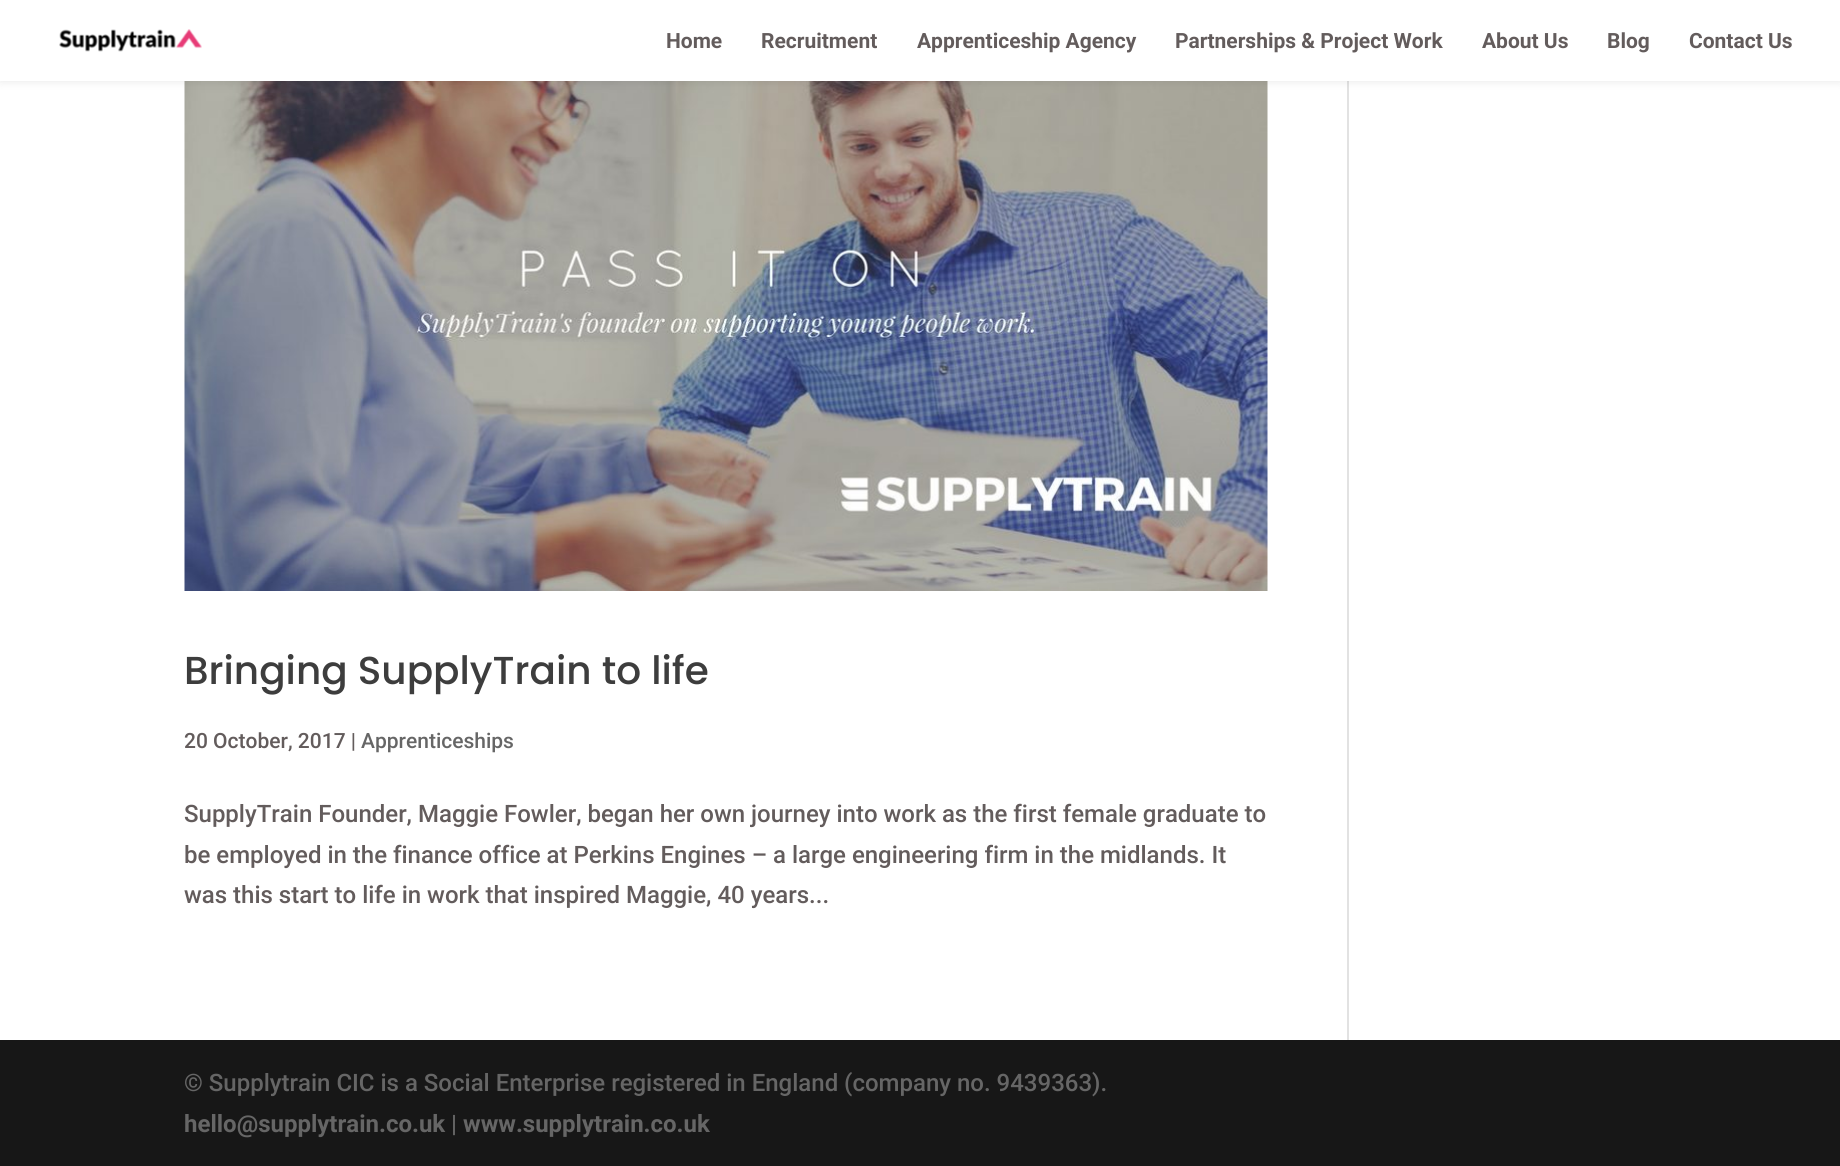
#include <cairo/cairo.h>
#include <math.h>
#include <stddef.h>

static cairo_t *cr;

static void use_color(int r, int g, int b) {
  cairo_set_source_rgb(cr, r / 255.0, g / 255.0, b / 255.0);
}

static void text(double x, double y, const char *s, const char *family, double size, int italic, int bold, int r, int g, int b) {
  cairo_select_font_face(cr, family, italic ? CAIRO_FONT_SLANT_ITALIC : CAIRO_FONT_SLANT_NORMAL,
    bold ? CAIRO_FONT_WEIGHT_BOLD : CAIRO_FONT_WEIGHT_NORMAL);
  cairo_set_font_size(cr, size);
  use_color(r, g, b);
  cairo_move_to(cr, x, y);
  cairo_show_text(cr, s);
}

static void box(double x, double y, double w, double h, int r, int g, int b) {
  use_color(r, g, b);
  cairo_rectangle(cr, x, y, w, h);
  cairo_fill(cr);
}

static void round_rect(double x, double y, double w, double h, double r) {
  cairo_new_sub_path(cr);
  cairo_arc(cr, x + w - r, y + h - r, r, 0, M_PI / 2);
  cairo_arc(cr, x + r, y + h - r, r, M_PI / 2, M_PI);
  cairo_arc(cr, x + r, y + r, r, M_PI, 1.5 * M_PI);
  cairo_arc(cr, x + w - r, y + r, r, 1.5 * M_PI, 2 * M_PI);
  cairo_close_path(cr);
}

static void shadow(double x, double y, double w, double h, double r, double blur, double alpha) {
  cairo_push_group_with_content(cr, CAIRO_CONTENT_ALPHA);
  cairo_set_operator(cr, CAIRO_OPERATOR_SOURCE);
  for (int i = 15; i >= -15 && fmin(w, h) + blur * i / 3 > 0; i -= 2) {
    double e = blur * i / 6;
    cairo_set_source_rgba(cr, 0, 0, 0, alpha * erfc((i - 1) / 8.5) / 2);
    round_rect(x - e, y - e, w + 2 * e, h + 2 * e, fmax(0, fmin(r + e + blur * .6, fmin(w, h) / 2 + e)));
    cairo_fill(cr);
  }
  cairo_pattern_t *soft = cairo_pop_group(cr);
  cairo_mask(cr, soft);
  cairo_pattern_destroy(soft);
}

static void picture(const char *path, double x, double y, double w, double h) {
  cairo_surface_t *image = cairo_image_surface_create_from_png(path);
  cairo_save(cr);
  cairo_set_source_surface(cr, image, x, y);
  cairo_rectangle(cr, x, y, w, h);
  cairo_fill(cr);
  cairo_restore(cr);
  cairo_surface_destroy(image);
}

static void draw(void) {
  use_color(255, 255, 255);
  cairo_paint(cr);
  picture("img_02.png", 184, 81, 1084, 510);
  box(1347, 81, 2, 959, 226, 226, 226);
  use_color(0, 0, 0);
  shadow(0, 0, 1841, 81, 0, 5, 0.1);
  box(0, 0, 1840, 81, 255, 255, 255);
  picture("img_01.png", 59, 29, 143, 23);
  box(0, 1040, 1840, 126, 23, 23, 23);
  text(666, 48, "Home", "Roboto", 21, 0, 1, 99, 92, 92);
  text(761, 48, "Recruitment", "Roboto", 21, 0, 1, 99, 92, 92);
  text(917, 48, "Apprenticeship Agency", "Roboto", 21, 0, 1, 99, 92, 92);
  text(1175, 48, "Partnerships & Project Work", "Roboto", 21, 0, 1, 99, 92, 92);
  text(1482, 48, "About Us", "Roboto", 21, 0, 1, 99, 92, 92);
  text(1607, 48, "Blog", "Roboto", 21, 0, 1, 99, 92, 92);
  text(1689, 48, "Contact Us", "Roboto", 21, 0, 1, 99, 92, 92);
  text(184, 684, "Bringing SupplyTrain to life", "Poppins Medium", 39, 0, 0, 61, 61, 61);
  text(184, 748, "20 October, 2017 |", "Roboto Medium", 21, 0, 0, 99, 92, 92);
  text(361, 748, "Apprenticeships", "Roboto Medium", 21, 0, 0, 102, 102, 102);
  text(184, 822, "SupplyTrain Founder, Maggie Fowler, began her own journey into work as the first female graduate to", "Roboto Medium", 24, 0, 0, 99, 92, 92);
  text(184, 863, "be employed in the finance office at Perkins Engines – a large engineering firm in the midlands. It", "Roboto Medium", 24, 0, 0, 99, 92, 92);
  text(184, 903, "was this start to life in work that inspired Maggie, 40 years...", "Roboto Medium", 24, 0, 0, 99, 92, 92);
  text(184, 1091, "© Supplytrain CIC is a Social Enterprise registered in England (company no. 9439363).", "Roboto Medium", 24, 0, 0, 102, 102, 102);
  text(184, 1132, "hello@supplytrain.co.uk", "Roboto", 24, 0, 1, 102, 102, 102);
  text(451, 1132, "|", "Roboto Medium", 24, 0, 0, 102, 102, 102);
  text(463, 1132, "www.supplytrain.co.uk", "Roboto", 24, 0, 1, 102, 102, 102);
}

int main(void) {
  cairo_surface_t *surface = cairo_image_surface_create(CAIRO_FORMAT_RGB24, 1840, 1166);
  cr = cairo_create(surface);
  cairo_font_options_t *options = cairo_font_options_create();
  cairo_font_options_set_hint_metrics(options, CAIRO_HINT_METRICS_OFF);
  cairo_font_options_set_hint_style(options, CAIRO_HINT_STYLE_NONE);
  cairo_set_font_options(cr, options);
  cairo_set_miter_limit(cr, 4);
  draw();
  cairo_surface_write_to_png(surface, "out.png");
  cairo_font_options_destroy(options);
  cairo_destroy(cr);
  cairo_surface_destroy(surface);
  return 0;
}
